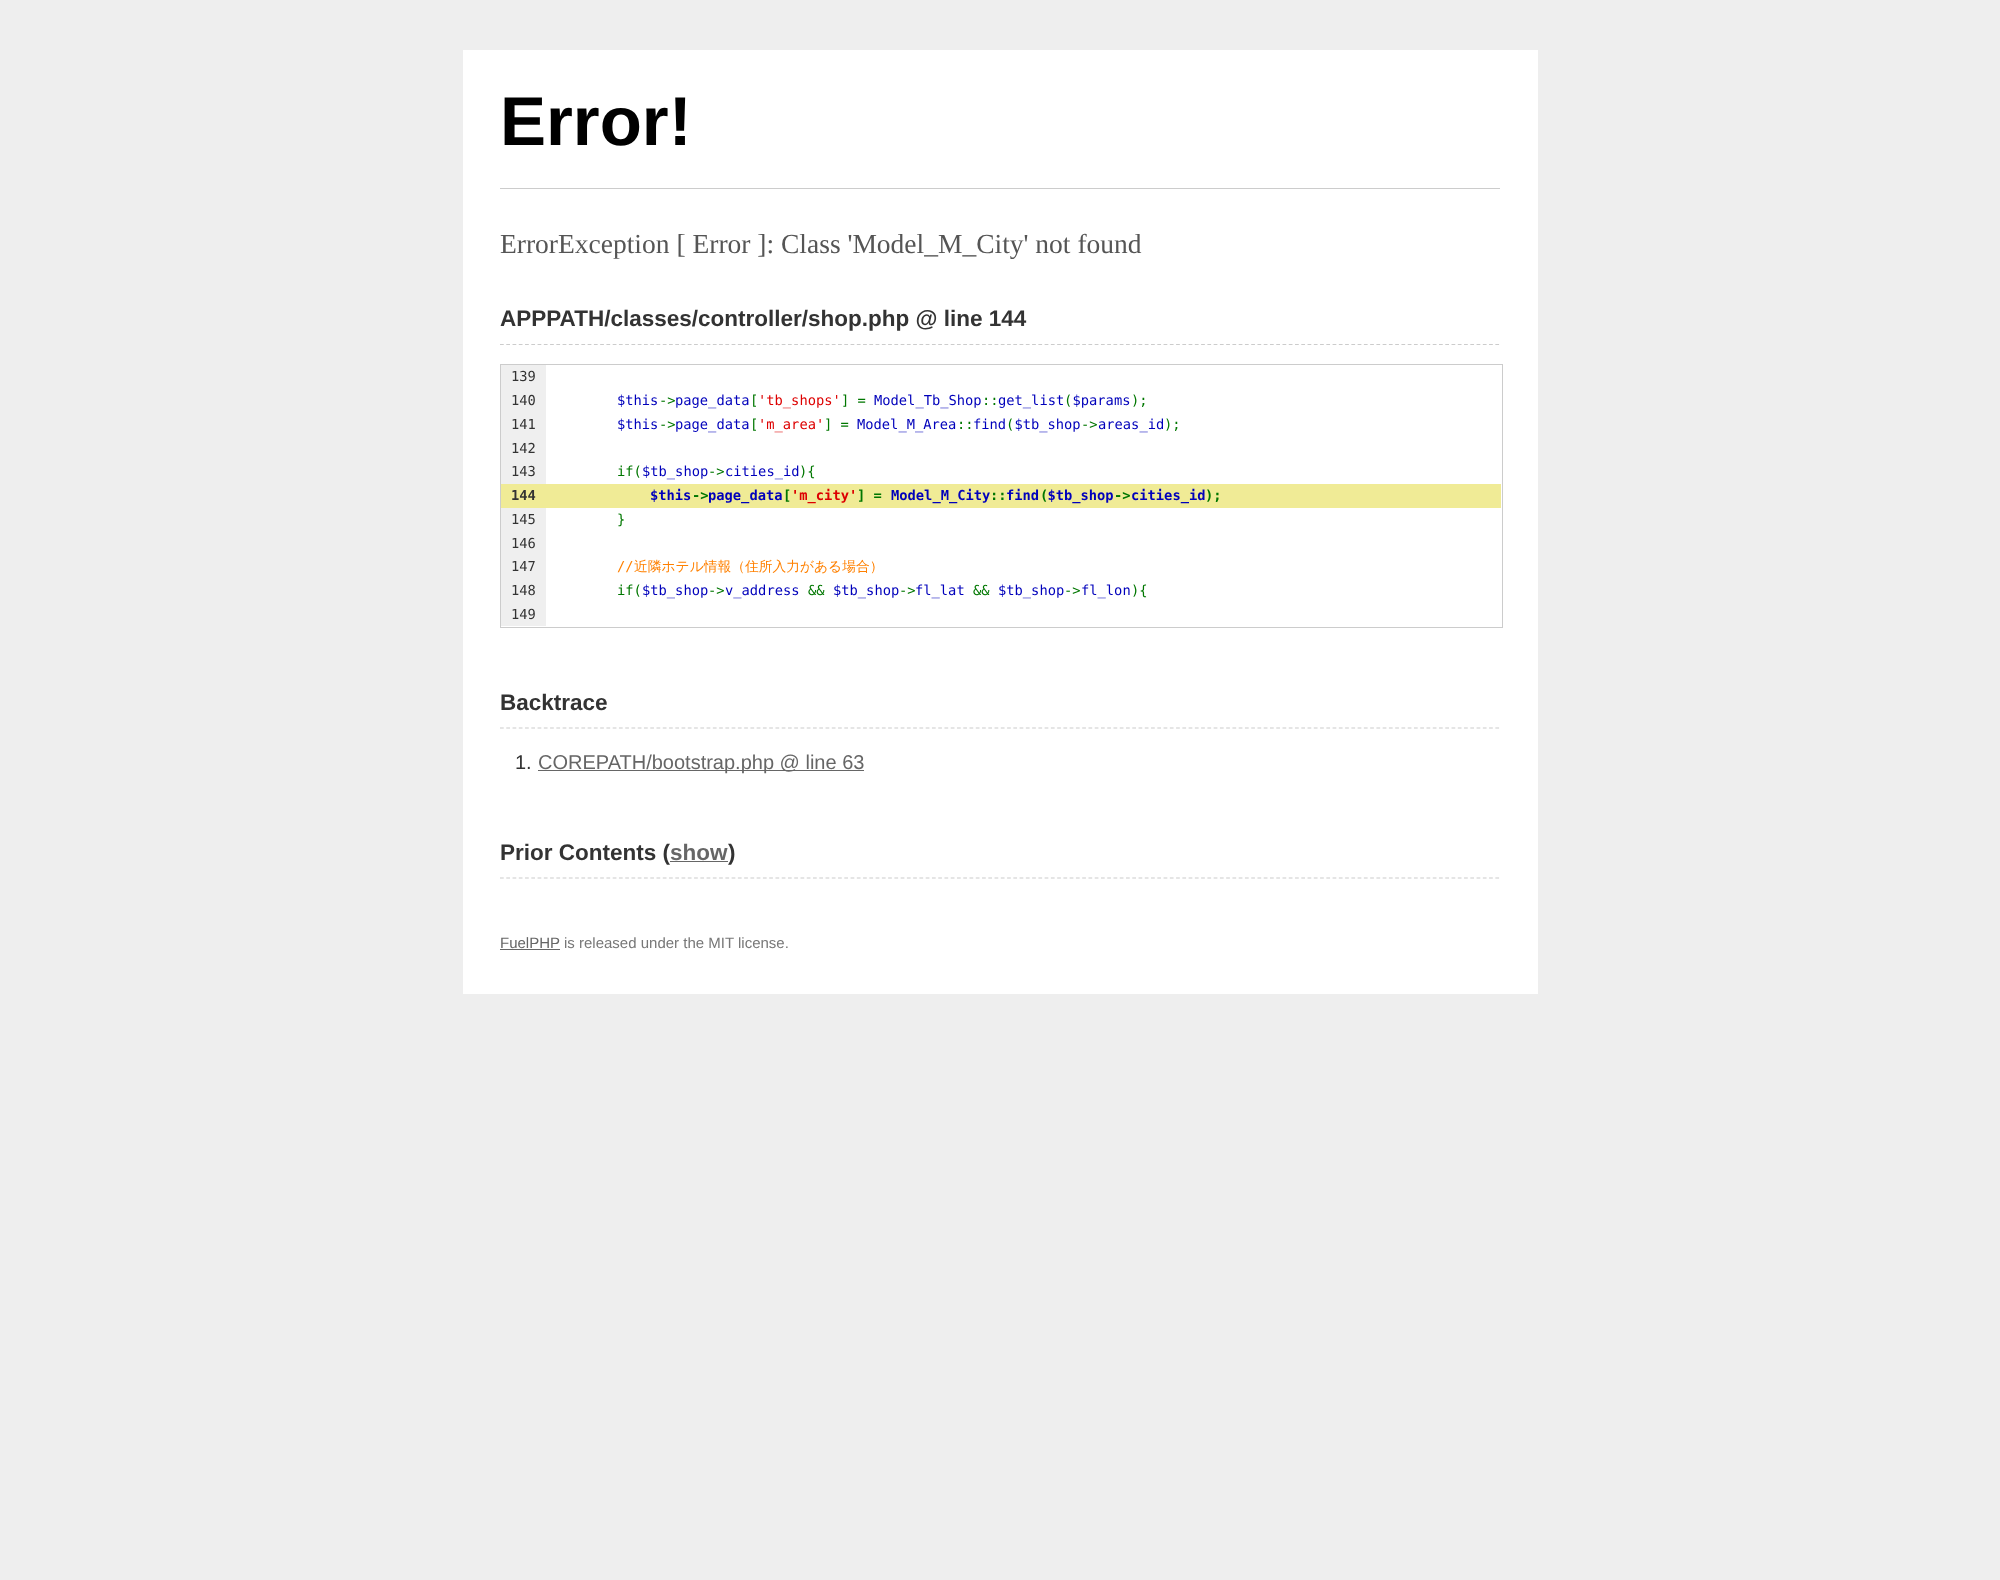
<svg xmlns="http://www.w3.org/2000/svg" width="2000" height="1580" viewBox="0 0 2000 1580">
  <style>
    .t1 { font: bold 69px Liberation Sans; fill: #000; }
    .t2 { font: 27.5px Liberation Serif; fill: #555; }
    .t3 { font: bold 22.5px Liberation Sans; fill: #333; }
    .t4 { font: 13.75px DejaVu Sans Mono; fill: #333; }
    .t5 { font: 13.75px DejaVu Sans Mono; fill: #00b; }
    .t6 { font: 13.75px DejaVu Sans Mono; fill: #070; }
    .t7 { font: 13.75px DejaVu Sans Mono; fill: #d00; }
    .t8 { font: bold 13.75px DejaVu Sans Mono; fill: #333; }
    .t9 { font: bold 13.75px DejaVu Sans Mono; fill: #00b; }
    .t10 { font: bold 13.75px DejaVu Sans Mono; fill: #070; }
    .t11 { font: bold 13.75px DejaVu Sans Mono; fill: #d00; }
    .t12 { font: 13.75px DejaVu Sans Mono; fill: #ff8000; }
    .t13 { font: 500 13.75px WenQuanYi Zen Hei; fill: #ff8000; }
    .t14 { font: 20px Liberation Sans; fill: #333; }
    .t15 { font: 20px Liberation Sans; fill: #666; }
    .t16 { font: bold 22.5px Liberation Sans; fill: #666; }
    .t17 { font: 15px Liberation Sans; fill: #666; }
    .t18 { font: 15px Liberation Sans; fill: #777; }
  </style>
  <rect width="100%" height="100%" fill="#eee"/>
  <rect x="463" y="50" width="1075" height="944" fill="#fff"/>
  <text x="500" y="145" class="t1">Error!</text>
  <rect x="500" y="188" width="1000" height="1" fill="#ccc"/>
  <text x="500" y="253" class="t2">ErrorException [ Error ]: Class 'Model_M_City' not found</text>
  <path d="M500 344.5H1500" fill="none" stroke="#ccc" stroke-width="1.2" stroke-dasharray="3.75 2.51"/>
  <text x="500" y="326" class="t3">APPPATH/classes/controller/shop.php @ line 144</text>
  <rect x="500.5" y="364.5" width="1002" height="263" fill="none" stroke="#ccc"/>
  <rect x="501" y="365" width="45" height="119" fill="#efefef"/>
  <text x="511" y="381" class="t4">139</text>
  <text x="511" y="405" class="t4">140</text>
  <text x="617" y="405" class="t5">$this</text>
  <text x="675" y="405" class="t5">page_data</text>
  <text x="750" y="405" class="t6">[</text>
  <text x="758" y="405" class="t7">'tb_shops'</text>
  <text x="841" y="405" class="t6">] =</text>
  <text x="874" y="405" class="t5">Model_Tb_Shop</text>
  <text x="998" y="405" class="t5">get_list $params</text>
  <text x="659" y="405" class="t6">-&gt;</text>
  <text x="982" y="405" class="t6">::</text>
  <text x="1064" y="405" class="t6">(</text>
  <text x="1131" y="405" class="t6">);</text>
  <text x="511" y="429" class="t4">141</text>
  <text x="617" y="429" class="t5">$this</text>
  <text x="675" y="429" class="t5">page_data</text>
  <text x="750" y="429" class="t6">[</text>
  <text x="824" y="429" class="t6">] =</text>
  <text x="857" y="429" class="t5">Model_M_Area</text>
  <text x="973" y="429" class="t5">find $tb_shop</text>
  <text x="659" y="429" class="t6">-&gt;</text>
  <text x="758" y="429" class="t7">'m_area'</text>
  <text x="957" y="429" class="t6">::</text>
  <text x="1006" y="429" class="t6">(</text>
  <text x="1081" y="429" class="t6">-&gt;</text>
  <text x="1098" y="429" class="t5">areas_id</text>
  <text x="1164" y="429" class="t6">);</text>
  <text x="511" y="453" class="t4">142</text>
  <text x="511" y="476" class="t4">143</text>
  <text x="617" y="476" class="t6">if(</text>
  <text x="642" y="476" class="t5">$tb_shop</text>
  <text x="708" y="476" class="t6">-&gt;</text>
  <text x="725" y="476" class="t5">cities_id</text>
  <text x="799" y="476" class="t6">){</text>
  <rect x="501" y="484" width="1000" height="24" fill="#f0eb96"/>
  <text x="511" y="500" class="t8">144</text>
  <text x="650" y="500" class="t9">$this</text>
  <text x="708" y="500" class="t9">page_data</text>
  <text x="783" y="500" class="t10">[</text>
  <text x="791" y="500" class="t11">'m_city'</text>
  <text x="857" y="500" class="t10">] =</text>
  <text x="891" y="500" class="t9">Model_M_City</text>
  <text x="1006" y="500" class="t9">find $tb_shop</text>
  <text x="1131" y="500" class="t9">cities_id</text>
  <text x="692" y="500" class="t10">-&gt;</text>
  <text x="990" y="500" class="t10">::</text>
  <text x="1040" y="500" class="t10">(</text>
  <text x="1114" y="500" class="t10">-&gt;</text>
  <text x="1205" y="500" class="t10">);</text>
  <rect x="501" y="508" width="45" height="118" fill="#efefef"/>
  <text x="511" y="524" class="t4">145</text>
  <text x="617" y="524" class="t6">}</text>
  <text x="511" y="548" class="t4">146</text>
  <text x="511" y="571" class="t4">147</text>
  <text x="617" y="571" class="t12">//</text>
  <text x="634" y="571" class="t13">近隣ホテル情報（住所入力がある場合）</text>
  <text x="511" y="595" class="t4">148</text>
  <text x="617" y="595" class="t6">if(</text>
  <text x="642" y="595" class="t5">$tb_shop</text>
  <text x="708" y="595" class="t6">-&gt;</text>
  <text x="725" y="595" class="t5">v_address</text>
  <text x="808" y="595" class="t6">&amp;&amp;</text>
  <text x="833" y="595" class="t5">$tb_shop</text>
  <text x="899" y="595" class="t6">-&gt;</text>
  <text x="915" y="595" class="t5">fl_lat</text>
  <text x="973" y="595" class="t6">&amp;&amp;</text>
  <text x="998" y="595" class="t5">$tb_shop</text>
  <text x="1064" y="595" class="t6">-&gt;</text>
  <text x="1081" y="595" class="t5">fl_lon</text>
  <text x="1131" y="595" class="t6">){</text>
  <text x="511" y="619" class="t4">149</text>
  <path d="M500 728H1500" fill="none" stroke="#ccc" stroke-width="1.2" stroke-dasharray="3.75 2.51"/>
  <text x="500" y="710" class="t3">Backtrace</text>
  <text x="515" y="769" class="t14">1.</text>
  <rect x="538" y="770" width="326" height="1" fill="#666"/>
  <text x="538" y="769" class="t15">COREPATH/bootstrap.php @ line 63</text>
  <path d="M500 878H1500" fill="none" stroke="#ccc" stroke-width="1.2" stroke-dasharray="3.75 2.51"/>
  <text x="500" y="860" class="t3">Prior Contents (</text>
  <text x="670" y="860" class="t16">show</text>
  <rect x="670" y="861" width="58" height="1" fill="#666"/>
  <text x="728" y="860" class="t3">)</text>
  <text x="500" y="948" class="t17">FuelPHP</text>
  <rect x="500" y="949" width="60" height="1" fill="#666"/>
  <text x="564" y="948" class="t18">is released under the MIT license.</text>
</svg>
